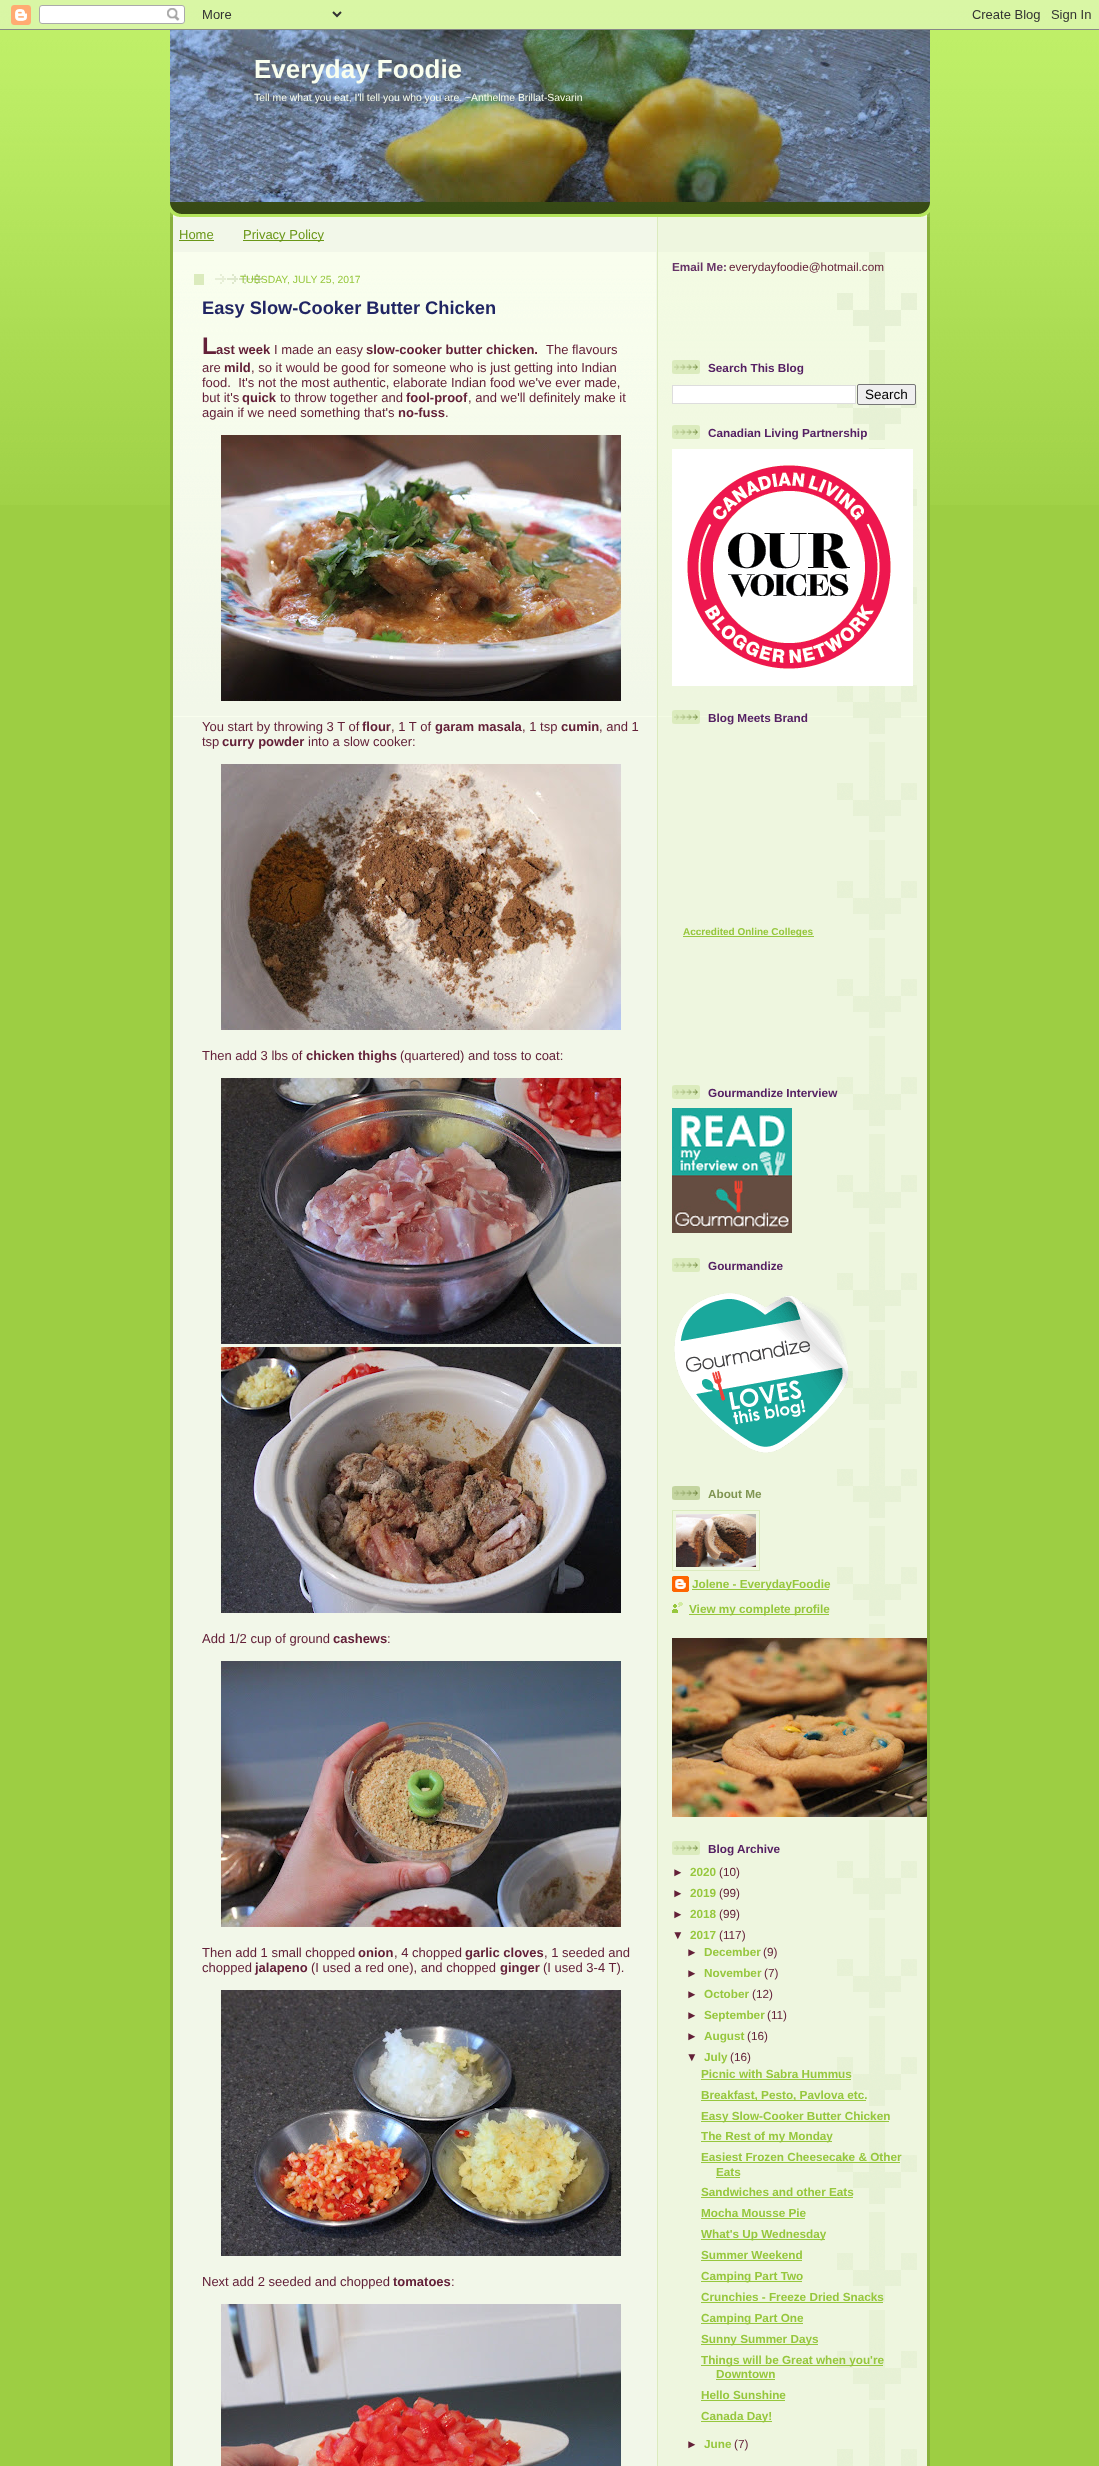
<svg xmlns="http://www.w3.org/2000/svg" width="1099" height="2466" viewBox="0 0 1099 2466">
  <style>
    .t1 { font: bold 26px Liberation Sans; fill: #f9feee; }
    .t2 { font: 10.4px Liberation Sans; fill: #f9feee; }
    .t3 { font: 13px Liberation Sans; fill: #6a9718; }
    .t4 { font: 10.4px Liberation Sans; fill: #96c73d; }
    .t5 { font: bold 18.25px Liberation Sans; fill: #202563; }
    .t6 { font: bold 24px Liberation Sans; fill: #632038; }
    .t7 { font: bold 13px Liberation Sans; fill: #632038; }
    .t8 { font: 13px Liberation Sans; fill: #632038; }
    .t9 { font: bold 11.75px Liberation Sans; fill: #636; }
    .t10 { font: 11.75px Liberation Sans; fill: #632038; }
    .t11 { font: bold 11.75px Liberation Sans; fill: #552063; }
    .t12 { font: 13.5px Liberation Sans; fill: #000; }
    .t13 { font: bold 10px Liberation Sans; fill: #96c73d; }
    .t14 { font: bold 11.75px Liberation Sans; fill: #809552; }
    .t15 { font: bold 11.75px Liberation Sans; fill: #96c73d; }
    .t16 { font: bold 11.75px Liberation Sans; fill: #632038; }
  </style>
  <rect width="100%" height="100%" fill="#9dce43"/>
  <image x="0" y="0" width="1099" height="505" href="images/1.png"/>
  <image x="0" y="0" width="1099" height="30" href="images/2.png"/>
  <image x="170" y="202" width="760" height="15" href="images/3.png"/>
  <image x="170" y="30" width="760" height="172" href="images/4.png"/>
  <text x="254" y="78" class="t1">Everyday Foodie</text>
  <text x="254" y="101" class="t2">Tell me what you eat, I'll tell you who you are. ~Anthelme Brillat-Savarin</text>
  <image x="170" y="217" width="760" height="2249" href="images/5.png"/>
  <text x="179" y="239" class="t3">Home</text>
  <rect x="179" y="240" width="35" height="1" fill="#6a9718"/>
  <rect x="243" y="240" width="81" height="1" fill="#6a9718"/>
  <text x="243" y="239" class="t3">Privacy Policy</text>
  <image x="173" y="252" width="483" height="465" href="images/6.png"/>
  <rect x="194" y="274" width="10" height="11" fill="#dbebbd"/>
  <image x="215" y="274" width="47" height="10" href="images/7.png"/>
  <text x="240" y="283" class="t4">TUESDAY, JULY 25, 2017</text>
  <text x="202" y="314" class="t5">Easy Slow-Cooker Butter Chicken</text>
  <text x="202" y="354" class="t6">L</text>
  <text x="216" y="354" class="t7">ast week</text>
  <text x="274" y="354" class="t8">I made an easy</text>
  <text x="366" y="354" class="t7">slow-cooker butter chicken.</text>
  <text x="546" y="354" class="t8">The flavours</text>
  <text x="202" y="372" class="t8">are</text>
  <text x="224" y="372" class="t7">mild</text>
  <text x="251" y="372" class="t8">, so it would be good for someone who is just getting into Indian</text>
  <text x="202" y="387" class="t8" xml:space="preserve">food.  It's not the most authentic, elaborate Indian food we've ever made,</text>
  <text x="202" y="402" class="t8">but it's</text>
  <text x="242" y="402" class="t7">quick</text>
  <text x="280" y="402" class="t8">to throw together and</text>
  <text x="406" y="402" class="t7">fool-proof</text>
  <text x="468" y="402" class="t8">, and we'll definitely make it</text>
  <text x="202" y="417" class="t8">again if we need something that's</text>
  <text x="398" y="417" class="t7">no-fuss</text>
  <text x="445" y="417" class="t8">.</text>
  <image x="221" y="435" width="400" height="266" href="images/8.png"/>
  <text x="202" y="731" class="t8">You start by throwing 3 T of</text>
  <text x="362" y="731" class="t7">flour</text>
  <text x="391" y="731" class="t8">, 1 T of</text>
  <text x="435" y="731" class="t7">garam masala</text>
  <text x="522" y="731" class="t8">, 1 tsp</text>
  <text x="561" y="731" class="t7">cumin</text>
  <text x="599" y="731" class="t8">, and 1</text>
  <text x="202" y="746" class="t8">tsp</text>
  <text x="222" y="746" class="t7">curry powder</text>
  <text x="308" y="746" class="t8">into a slow cooker:</text>
  <image x="221" y="764" width="400" height="266" href="images/9.png"/>
  <text x="202" y="1060" class="t8">Then add 3 lbs of</text>
  <text x="306" y="1060" class="t7">chicken thighs</text>
  <text x="400" y="1060" class="t8">(quartered) and toss to coat:</text>
  <image x="221" y="1078" width="400" height="266" href="images/10.png"/>
  <image x="221" y="1347" width="400" height="266" href="images/11.png"/>
  <text x="202" y="1643" class="t8">Add 1/2 cup of ground</text>
  <text x="333" y="1643" class="t7">cashews</text>
  <text x="387" y="1643" class="t8">:</text>
  <image x="221" y="1661" width="400" height="266" href="images/12.png"/>
  <text x="202" y="1957" class="t8">Then add 1 small chopped</text>
  <text x="358" y="1957" class="t7">onion</text>
  <text x="394" y="1957" class="t8">, 4 chopped</text>
  <text x="465" y="1957" class="t7">garlic cloves</text>
  <text x="544" y="1957" class="t8">, 1 seeded and</text>
  <text x="202" y="1972" class="t8">chopped</text>
  <text x="255" y="1972" class="t7">jalapeno</text>
  <text x="311" y="1972" class="t8">(I used a red one), and chopped</text>
  <text x="500" y="1972" class="t7">ginger</text>
  <text x="543" y="1972" class="t8">(I used 3-4 T).</text>
  <image x="221" y="1990" width="400" height="266" href="images/13.png"/>
  <text x="202" y="2286" class="t8">Next add 2 seeded and chopped</text>
  <text x="393" y="2286" class="t7">tomatoes</text>
  <text x="451" y="2286" class="t8">:</text>
  <image x="221" y="2304" width="400" height="162" href="images/14.png"/>
  <image x="658" y="252" width="269" height="465" href="images/15.png"/>
  <image x="837" y="252" width="80" height="2214" href="images/16.png"/>
  <text x="672" y="271" class="t9">Email Me:</text>
  <text x="729" y="271" class="t10">everydayfoodie@hotmail.com</text>
  <image x="672" y="360" width="28" height="14" href="images/17.png"/>
  <text x="708" y="372" class="t11">Search This Blog</text>
  <rect x="672.5" y="385.5" width="183" height="18" fill="#fff" stroke="#ddd"/>
  <rect x="857.5" y="384.5" width="58" height="20" rx="1.5" fill="#efefef" stroke="#767676"/>
  <text x="865" y="399" class="t12">Search</text>
  <image x="672" y="425" width="28" height="14" href="images/18.png"/>
  <text x="708" y="437" class="t11">Canadian Living Partnership</text>
  <image x="672" y="449" width="241" height="237" href="images/19.png"/>
  <image x="672" y="710" width="28" height="14" href="images/20.png"/>
  <text x="708" y="722" class="t11">Blog Meets Brand</text>
  <rect x="683" y="936" width="131" height="1" fill="#96c73d"/>
  <text x="683" y="935" class="t13">Accredited Online Colleges</text>
  <image x="672" y="1085" width="28" height="14" href="images/20.png"/>
  <text x="708" y="1097" class="t11">Gourmandize Interview</text>
  <image x="672" y="1108" width="120" height="125" href="images/21.png"/>
  <image x="672" y="1258" width="28" height="14" href="images/20.png"/>
  <text x="708" y="1270" class="t11">Gourmandize</text>
  <image x="674" y="1293" width="175" height="160" href="images/22.png"/>
  <image x="672" y="1486" width="28" height="14" href="images/23.png"/>
  <text x="708" y="1498" class="t14">About Me</text>
  <rect x="672.5" y="1510.5" width="87" height="60" fill="none" stroke="#dbebbd"/>
  <image x="676" y="1514" width="80" height="53" href="images/24.png"/>
  <image x="672" y="1576" width="17" height="16" href="images/25.png"/>
  <rect x="692" y="1589" width="137" height="1" fill="#96c73d"/>
  <text x="692" y="1588" class="t15">Jolene - EverydayFoodie</text>
  <image x="672" y="1602" width="11" height="11" href="images/26.png"/>
  <rect x="689" y="1614" width="140" height="1" fill="#96c73d"/>
  <text x="689" y="1613" class="t15">View my complete profile</text>
  <image x="672" y="1638" width="255" height="179" href="images/27.png"/>
  <image x="672" y="1841" width="28" height="14" href="images/20.png"/>
  <text x="708" y="1853" class="t11">Blog Archive</text>
  <text x="672" y="1876" class="t16">►</text>
  <text x="690" y="1876" class="t15">2020</text>
  <text x="719" y="1876" class="t10">(10)</text>
  <text x="672" y="1897" class="t16">►</text>
  <text x="690" y="1897" class="t15">2019</text>
  <text x="719" y="1897" class="t10">(99)</text>
  <text x="672" y="1918" class="t16">►</text>
  <text x="690" y="1918" class="t15">2018</text>
  <text x="719" y="1918" class="t10">(99)</text>
  <text x="672" y="1939" class="t16">▼</text>
  <text x="690" y="1939" class="t15">2017</text>
  <text x="719" y="1939" class="t10">(117)</text>
  <text x="686" y="1956" class="t16">►</text>
  <text x="704" y="1956" class="t15">December</text>
  <text x="763" y="1956" class="t10">(9)</text>
  <text x="686" y="1977" class="t16">►</text>
  <text x="704" y="1977" class="t15">November</text>
  <text x="764" y="1977" class="t10">(7)</text>
  <text x="686" y="1998" class="t16">►</text>
  <text x="704" y="1998" class="t15">October</text>
  <text x="752" y="1998" class="t10">(12)</text>
  <text x="686" y="2019" class="t16">►</text>
  <text x="704" y="2019" class="t15">September</text>
  <text x="767" y="2019" class="t10">(11)</text>
  <text x="686" y="2040" class="t16">►</text>
  <text x="704" y="2040" class="t15">August</text>
  <text x="747" y="2040" class="t10">(16)</text>
  <text x="686" y="2061" class="t16">▼</text>
  <text x="704" y="2061" class="t15">July</text>
  <text x="730" y="2061" class="t10">(16)</text>
  <text x="701" y="2078" class="t15">Picnic with Sabra Hummus</text>
  <rect x="701" y="2079" width="150" height="1" fill="#96c73d"/>
  <rect x="701" y="2100" width="165" height="1" fill="#96c73d"/>
  <text x="701" y="2099" class="t15">Breakfast, Pesto, Pavlova etc.</text>
  <rect x="701" y="2121" width="188" height="1" fill="#96c73d"/>
  <text x="701" y="2120" class="t15">Easy Slow-Cooker Butter Chicken</text>
  <rect x="701" y="2141" width="131" height="1" fill="#96c73d"/>
  <text x="701" y="2140" class="t15">The Rest of my Monday</text>
  <text x="701" y="2161" class="t15">Easiest Frozen Cheesecake &amp; Other</text>
  <rect x="701" y="2162" width="199" height="1" fill="#96c73d"/>
  <text x="716" y="2176" class="t15">Eats</text>
  <rect x="716" y="2177" width="24" height="1" fill="#96c73d"/>
  <text x="701" y="2196" class="t15">Sandwiches and other Eats</text>
  <rect x="701" y="2197" width="152" height="1" fill="#96c73d"/>
  <text x="701" y="2217" class="t15">Mocha Mousse Pie</text>
  <rect x="701" y="2218" width="104" height="1" fill="#96c73d"/>
  <rect x="701" y="2239" width="124" height="1" fill="#96c73d"/>
  <text x="701" y="2238" class="t15">What's Up Wednesday</text>
  <text x="701" y="2259" class="t15">Summer Weekend</text>
  <rect x="701" y="2260" width="101" height="1" fill="#96c73d"/>
  <rect x="701" y="2281" width="101" height="1" fill="#96c73d"/>
  <text x="701" y="2280" class="t15">Camping Part Two</text>
  <text x="701" y="2301" class="t15">Crunchies - Freeze Dried Snacks</text>
  <rect x="701" y="2302" width="182" height="1" fill="#96c73d"/>
  <rect x="701" y="2323" width="102" height="1" fill="#96c73d"/>
  <text x="701" y="2322" class="t15">Camping Part One</text>
  <rect x="701" y="2344" width="117" height="1" fill="#96c73d"/>
  <text x="701" y="2343" class="t15">Sunny Summer Days</text>
  <rect x="701" y="2365" width="182" height="1" fill="#96c73d"/>
  <text x="701" y="2364" class="t15">Things will be Great when you're</text>
  <text x="716" y="2378" class="t15">Downtown</text>
  <rect x="716" y="2379" width="59" height="1" fill="#96c73d"/>
  <text x="701" y="2399" class="t15">Hello Sunshine</text>
  <rect x="701" y="2400" width="84" height="1" fill="#96c73d"/>
  <rect x="701" y="2421" width="71" height="1" fill="#96c73d"/>
  <text x="701" y="2420" class="t15">Canada Day!</text>
  <text x="686" y="2448" class="t16">►</text>
  <text x="704" y="2448" class="t15">June</text>
  <text x="734" y="2448" class="t10">(7)</text>
</svg>
